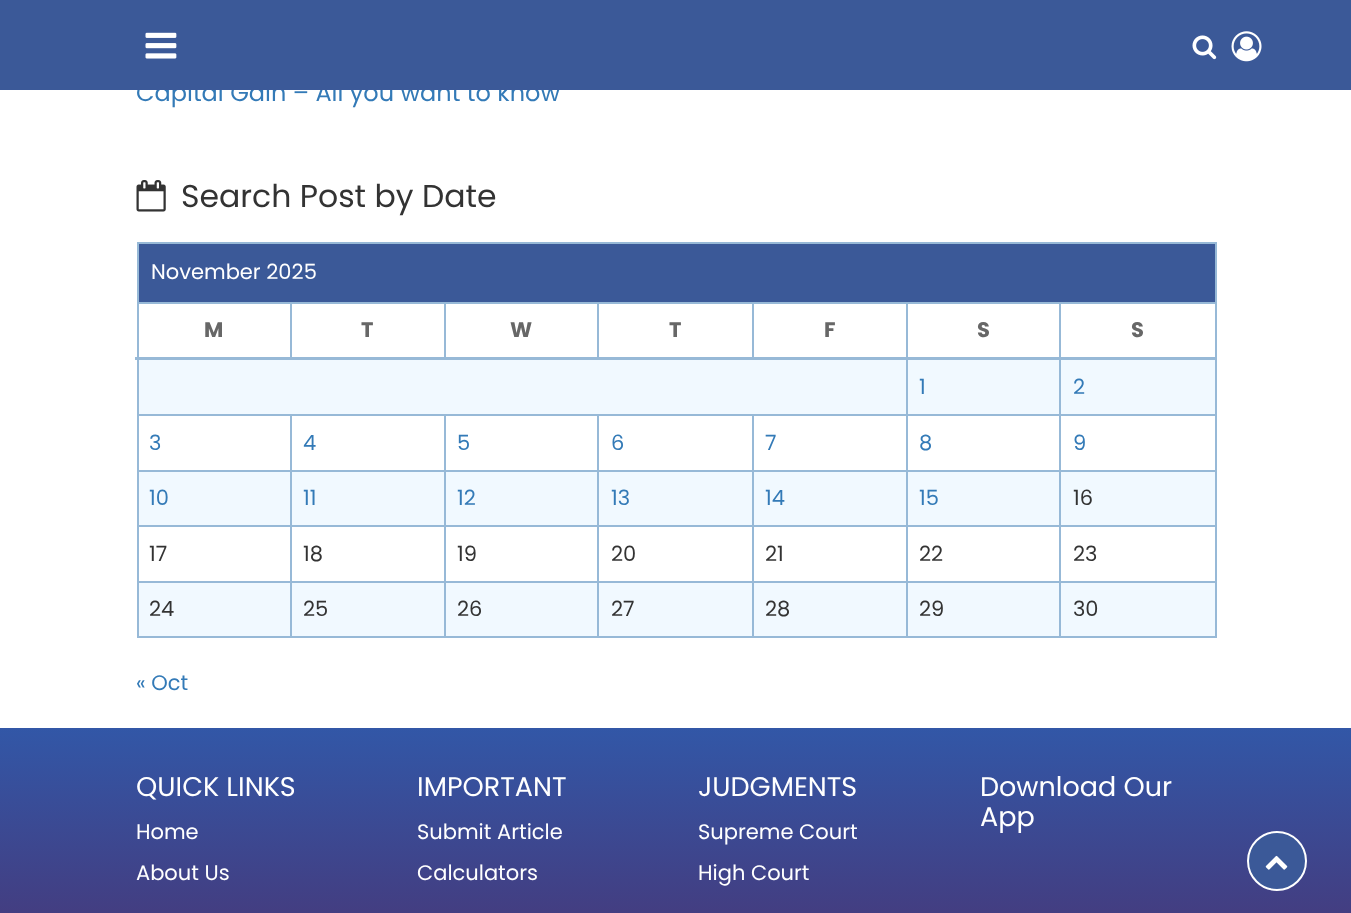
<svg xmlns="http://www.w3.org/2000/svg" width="1351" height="913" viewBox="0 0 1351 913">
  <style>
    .t1 { font: 24px Poppins; fill: #337ab7; }
    .t2 { font: 31.5px Poppins; fill: #333; }
    .t3 { font: 21px Poppins; fill: #fff; }
    .t4 { font: bold 21px Poppins; fill: #676767; }
    .t5 { font: 21px Poppins; fill: #337ab7; }
    .t6 { font: 21px Poppins; fill: #333; }
    .t7 { font: 27px Poppins; fill: #fff; }
  </style>
  <defs>
    <linearGradient id="g1" gradientUnits="userSpaceOnUse" x1="676" y1="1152" x2="676" y2="728"><stop offset="0" stop-color="#591d51"/><stop offset="1" stop-color="#3257a7"/></linearGradient>
  </defs>
  <rect width="100%" height="100%" fill="#fff"/>
  <text x="136" y="101" class="t1">Capital Gain – All you want to know</text>
  <rect x="0" y="0" width="1351" height="90" fill="#3b5998"/>
  <image x="145" y="32" width="32" height="27" href="images/1.png"/>
  <image x="1192" y="35" width="25" height="25" href="images/2.png"/>
  <image x="1231" y="31" width="31" height="31" href="images/3.png"/>
  <image x="136" y="180" width="30" height="32" href="images/4.png"/>
  <text x="181" y="207" class="t2">Search Post by Date</text>
  <rect x="137" y="242" width="1080" height="2" fill="#97b9d7"/>
  <rect x="1215" y="242" width="2" height="396" fill="#97b9d7"/>
  <rect x="137" y="636" width="1080" height="2" fill="#97b9d7"/>
  <rect x="137" y="242" width="2" height="396" fill="#97b9d7"/>
  <rect x="139" y="244" width="1076" height="58" fill="#3b5998"/>
  <text x="151" y="279" class="t3">November 2025</text>
  <rect x="1059" y="302" width="158" height="2" fill="#97b9d7"/>
  <rect x="139" y="360" width="1076" height="54" fill="#f1f9ff"/>
  <rect x="1059" y="414" width="158" height="2" fill="#97b9d7"/>
  <rect x="1059" y="470" width="158" height="2" fill="#97b9d7"/>
  <rect x="139" y="472" width="1076" height="53" fill="#f1f9ff"/>
  <rect x="1059" y="525" width="158" height="2" fill="#97b9d7"/>
  <rect x="1059" y="581" width="158" height="2" fill="#97b9d7"/>
  <rect x="139" y="583" width="1076" height="53" fill="#f1f9ff"/>
  <rect x="1059" y="581" width="2" height="57" fill="#97b9d7"/>
  <rect x="906" y="581" width="155" height="2" fill="#97b9d7"/>
  <rect x="1059" y="525" width="2" height="57" fill="#97b9d7"/>
  <rect x="906" y="525" width="155" height="2" fill="#97b9d7"/>
  <rect x="1059" y="470" width="2" height="57" fill="#97b9d7"/>
  <rect x="906" y="470" width="155" height="2" fill="#97b9d7"/>
  <rect x="1059" y="414" width="2" height="57" fill="#97b9d7"/>
  <rect x="906" y="414" width="155" height="2" fill="#97b9d7"/>
  <rect x="1059" y="357" width="2" height="59" fill="#97b9d7"/>
  <rect x="1059" y="302" width="2" height="57" fill="#97b9d7"/>
  <rect x="906" y="302" width="155" height="2" fill="#97b9d7"/>
  <rect x="906" y="581" width="2" height="57" fill="#97b9d7"/>
  <rect x="752" y="581" width="156" height="2" fill="#97b9d7"/>
  <rect x="906" y="525" width="2" height="57" fill="#97b9d7"/>
  <rect x="752" y="525" width="156" height="2" fill="#97b9d7"/>
  <rect x="906" y="470" width="2" height="57" fill="#97b9d7"/>
  <rect x="752" y="470" width="156" height="2" fill="#97b9d7"/>
  <rect x="906" y="414" width="2" height="57" fill="#97b9d7"/>
  <rect x="752" y="414" width="156" height="2" fill="#97b9d7"/>
  <rect x="906" y="357" width="2" height="59" fill="#97b9d7"/>
  <rect x="906" y="302" width="2" height="57" fill="#97b9d7"/>
  <rect x="752" y="302" width="156" height="2" fill="#97b9d7"/>
  <rect x="752" y="302" width="2" height="57" fill="#97b9d7"/>
  <rect x="597" y="302" width="156" height="2" fill="#97b9d7"/>
  <rect x="597" y="302" width="2" height="57" fill="#97b9d7"/>
  <rect x="444" y="302" width="155" height="2" fill="#97b9d7"/>
  <rect x="444" y="302" width="2" height="57" fill="#97b9d7"/>
  <rect x="290" y="302" width="156" height="2" fill="#97b9d7"/>
  <rect x="290" y="302" width="2" height="57" fill="#97b9d7"/>
  <rect x="137" y="302" width="154" height="2" fill="#97b9d7"/>
  <text x="204" y="337" class="t4">M</text>
  <text x="361" y="337" class="t4">T</text>
  <text x="510" y="337" class="t4">W</text>
  <text x="669" y="337" class="t4">T</text>
  <text x="824" y="337" class="t4">F</text>
  <text x="977" y="337" class="t4">S</text>
  <rect x="135" y="357" width="1082" height="3" fill="#97b9d7"/>
  <text x="1131" y="337" class="t4">S</text>
  <text x="919" y="394" class="t5">1</text>
  <text x="1073" y="394" class="t5">2</text>
  <rect x="752" y="581" width="2" height="57" fill="#97b9d7"/>
  <rect x="597" y="581" width="156" height="2" fill="#97b9d7"/>
  <rect x="752" y="525" width="2" height="57" fill="#97b9d7"/>
  <rect x="597" y="525" width="156" height="2" fill="#97b9d7"/>
  <rect x="752" y="470" width="2" height="57" fill="#97b9d7"/>
  <rect x="597" y="470" width="156" height="2" fill="#97b9d7"/>
  <rect x="752" y="414" width="2" height="57" fill="#97b9d7"/>
  <rect x="597" y="414" width="156" height="2" fill="#97b9d7"/>
  <rect x="597" y="581" width="2" height="57" fill="#97b9d7"/>
  <rect x="444" y="581" width="155" height="2" fill="#97b9d7"/>
  <rect x="597" y="525" width="2" height="57" fill="#97b9d7"/>
  <rect x="444" y="525" width="155" height="2" fill="#97b9d7"/>
  <rect x="597" y="470" width="2" height="57" fill="#97b9d7"/>
  <rect x="444" y="470" width="155" height="2" fill="#97b9d7"/>
  <rect x="597" y="414" width="2" height="57" fill="#97b9d7"/>
  <rect x="444" y="414" width="155" height="2" fill="#97b9d7"/>
  <rect x="444" y="581" width="2" height="57" fill="#97b9d7"/>
  <rect x="290" y="581" width="156" height="2" fill="#97b9d7"/>
  <rect x="444" y="525" width="2" height="57" fill="#97b9d7"/>
  <rect x="290" y="525" width="156" height="2" fill="#97b9d7"/>
  <rect x="444" y="470" width="2" height="57" fill="#97b9d7"/>
  <rect x="290" y="470" width="156" height="2" fill="#97b9d7"/>
  <rect x="444" y="414" width="2" height="57" fill="#97b9d7"/>
  <rect x="290" y="414" width="156" height="2" fill="#97b9d7"/>
  <rect x="290" y="581" width="2" height="57" fill="#97b9d7"/>
  <rect x="137" y="581" width="154" height="2" fill="#97b9d7"/>
  <rect x="290" y="525" width="2" height="57" fill="#97b9d7"/>
  <rect x="137" y="525" width="154" height="2" fill="#97b9d7"/>
  <rect x="290" y="470" width="2" height="57" fill="#97b9d7"/>
  <rect x="137" y="470" width="154" height="2" fill="#97b9d7"/>
  <rect x="290" y="414" width="2" height="57" fill="#97b9d7"/>
  <rect x="137" y="414" width="154" height="2" fill="#97b9d7"/>
  <text x="149" y="450" class="t5">3</text>
  <text x="303" y="450" class="t5">4</text>
  <text x="457" y="450" class="t5">5</text>
  <text x="611" y="450" class="t5">6</text>
  <text x="765" y="450" class="t5">7</text>
  <text x="919" y="450" class="t5">8</text>
  <text x="1073" y="450" class="t5">9</text>
  <text x="149" y="505" class="t5">10</text>
  <text x="303" y="505" class="t5">11</text>
  <text x="457" y="505" class="t5">12</text>
  <text x="611" y="505" class="t5">13</text>
  <text x="765" y="505" class="t5">14</text>
  <text x="919" y="505" class="t5">15</text>
  <text x="1073" y="505" class="t6">16</text>
  <text x="149" y="561" class="t6">17</text>
  <text x="303" y="561" class="t6">18</text>
  <text x="457" y="561" class="t6">19</text>
  <text x="611" y="561" class="t6">20</text>
  <text x="765" y="561" class="t6">21</text>
  <text x="919" y="561" class="t6">22</text>
  <text x="1073" y="561" class="t6">23</text>
  <text x="149" y="616" class="t6">24</text>
  <text x="303" y="616" class="t6">25</text>
  <text x="457" y="616" class="t6">26</text>
  <text x="611" y="616" class="t6">27</text>
  <text x="765" y="616" class="t6">28</text>
  <text x="919" y="616" class="t6">29</text>
  <text x="1073" y="616" class="t6">30</text>
  <text x="136" y="690" class="t5">« Oct</text>
  <rect x="0" y="728" width="1351" height="185" fill="url(#g1)"/>
  <text x="136" y="796" class="t7">QUICK LINKS</text>
  <text x="136" y="839" class="t3">Home</text>
  <text x="136" y="880" class="t3">About Us</text>
  <text x="417" y="796" class="t7">IMPORTANT</text>
  <text x="417" y="839" class="t3">Submit Article</text>
  <text x="417" y="880" class="t3">Calculators</text>
  <text x="698" y="796" class="t7">JUDGMENTS</text>
  <text x="698" y="839" class="t3">Supreme Court</text>
  <text x="698" y="880" class="t3">High Court</text>
  <text x="980" y="796" class="t7">Download Our</text>
  <text x="980" y="826" class="t7">App</text>
  <circle cx="1277" cy="861" r="29" fill="#3b5998" stroke="#fff" stroke-width="2"/>
  <image x="1265" y="855" width="23" height="15" href="images/5.png"/>
</svg>
